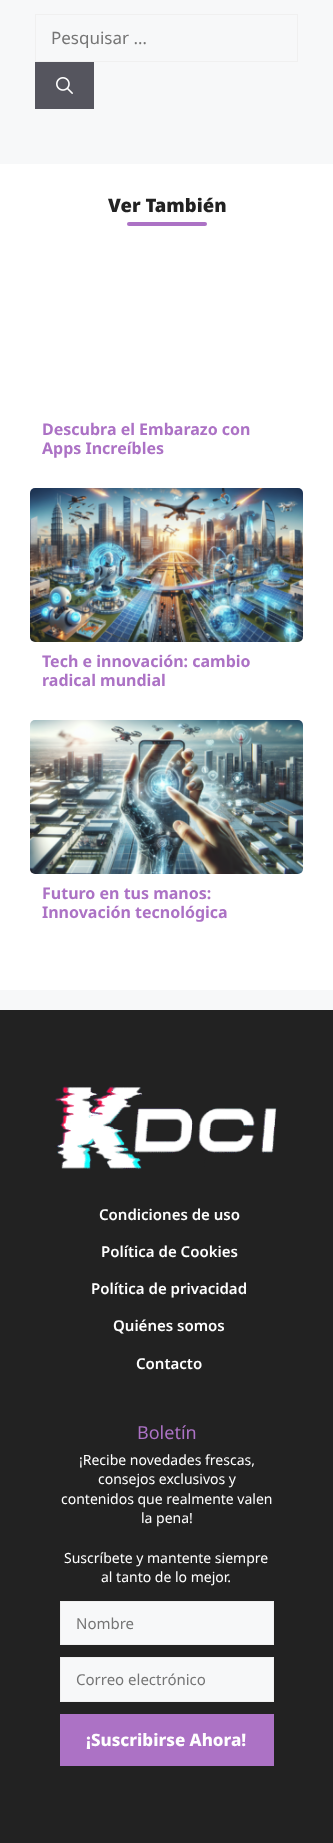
<svg xmlns="http://www.w3.org/2000/svg" width="333" height="1843" viewBox="0 0 333 1843">
  <style>
    .t1 { font: 17px Noto Sans; fill: #757575; }
    .t2 { font: 900 18.5px Noto Sans; fill: #222; }
    .t3 { font: bold 16px Noto Sans; fill: #ac72c5; }
    .t4 { font: 600 15px Noto Sans; fill: #fff; }
    .t5 { font: 18px Noto Sans; fill: #ac72c5; }
    .t6 { font: 14px Noto Sans; fill: #fff; }
    .t7 { font: 15px Noto Sans; fill: #757575; }
    .t8 { font: 800 17px Noto Sans; fill: #fff; }
  </style>
  <rect width="100%" height="100%" fill="#f7f8f9"/>
  <rect x="35.5" y="14.5" width="262" height="47" fill="none" stroke="#f0f0f0"/>
  <text x="51" y="44" class="t1">Pesquisar …</text>
  <rect x="35" y="62" width="59" height="47" fill="#55555e"/>
  <image x="56" y="77" width="17" height="17" href="images/1.png"/>
  <rect x="0" y="164" width="333" height="826" fill="#fff"/>
  <text x="108" y="212" class="t2">Ver También</text>
  <rect x="127" y="222" width="80" height="4" rx="2" fill="#ac72c5"/>
  <text x="42" y="435" class="t3">Descubra el Embarazo con</text>
  <text x="42" y="454" class="t3">Apps Increíbles</text>
  <image x="30" y="488" width="273" height="154" href="images/2.png"/>
  <text x="42" y="667" class="t3">Tech e innovación: cambio</text>
  <text x="42" y="686" class="t3">radical mundial</text>
  <image x="30" y="720" width="273" height="154" href="images/3.png"/>
  <text x="42" y="899" class="t3">Futuro en tus manos:</text>
  <text x="42" y="918" class="t3">Innovación tecnológica</text>
  <rect x="0" y="1010" width="333" height="833" fill="#222"/>
  <image x="54" y="1086" width="223" height="84" href="images/4.png"/>
  <text x="99" y="1220" class="t4">Condiciones de uso</text>
  <text x="101" y="1257" class="t4">Política de Cookies</text>
  <text x="91" y="1294" class="t4">Política de privacidad</text>
  <text x="113" y="1331" class="t4">Quiénes somos</text>
  <text x="136" y="1369" class="t4">Contacto</text>
  <text x="137" y="1439" class="t5">Boletín</text>
  <text x="79" y="1465" class="t6">¡Recibe novedades frescas,</text>
  <text x="98" y="1484" class="t6">consejos exclusivos y</text>
  <text x="61" y="1504" class="t6">contenidos que realmente valen</text>
  <text x="141" y="1523" class="t6">la pena!</text>
  <text x="64" y="1563" class="t6">Suscríbete y mantente siempre</text>
  <text x="101" y="1582" class="t6">al tanto de lo mejor.</text>
  <rect x="60.5" y="1601.5" width="213" height="43" fill="#f7f8f9" stroke="#f0f0f0"/>
  <text x="76" y="1629" class="t7">Nombre</text>
  <rect x="60.5" y="1657.5" width="213" height="44" fill="#f7f8f9" stroke="#f0f0f0"/>
  <text x="76" y="1685" class="t7">Correo electrónico</text>
  <rect x="60" y="1714" width="214" height="52" fill="#ac72c5"/>
  <text x="86" y="1746" class="t8">¡Suscribirse Ahora!</text>
</svg>
